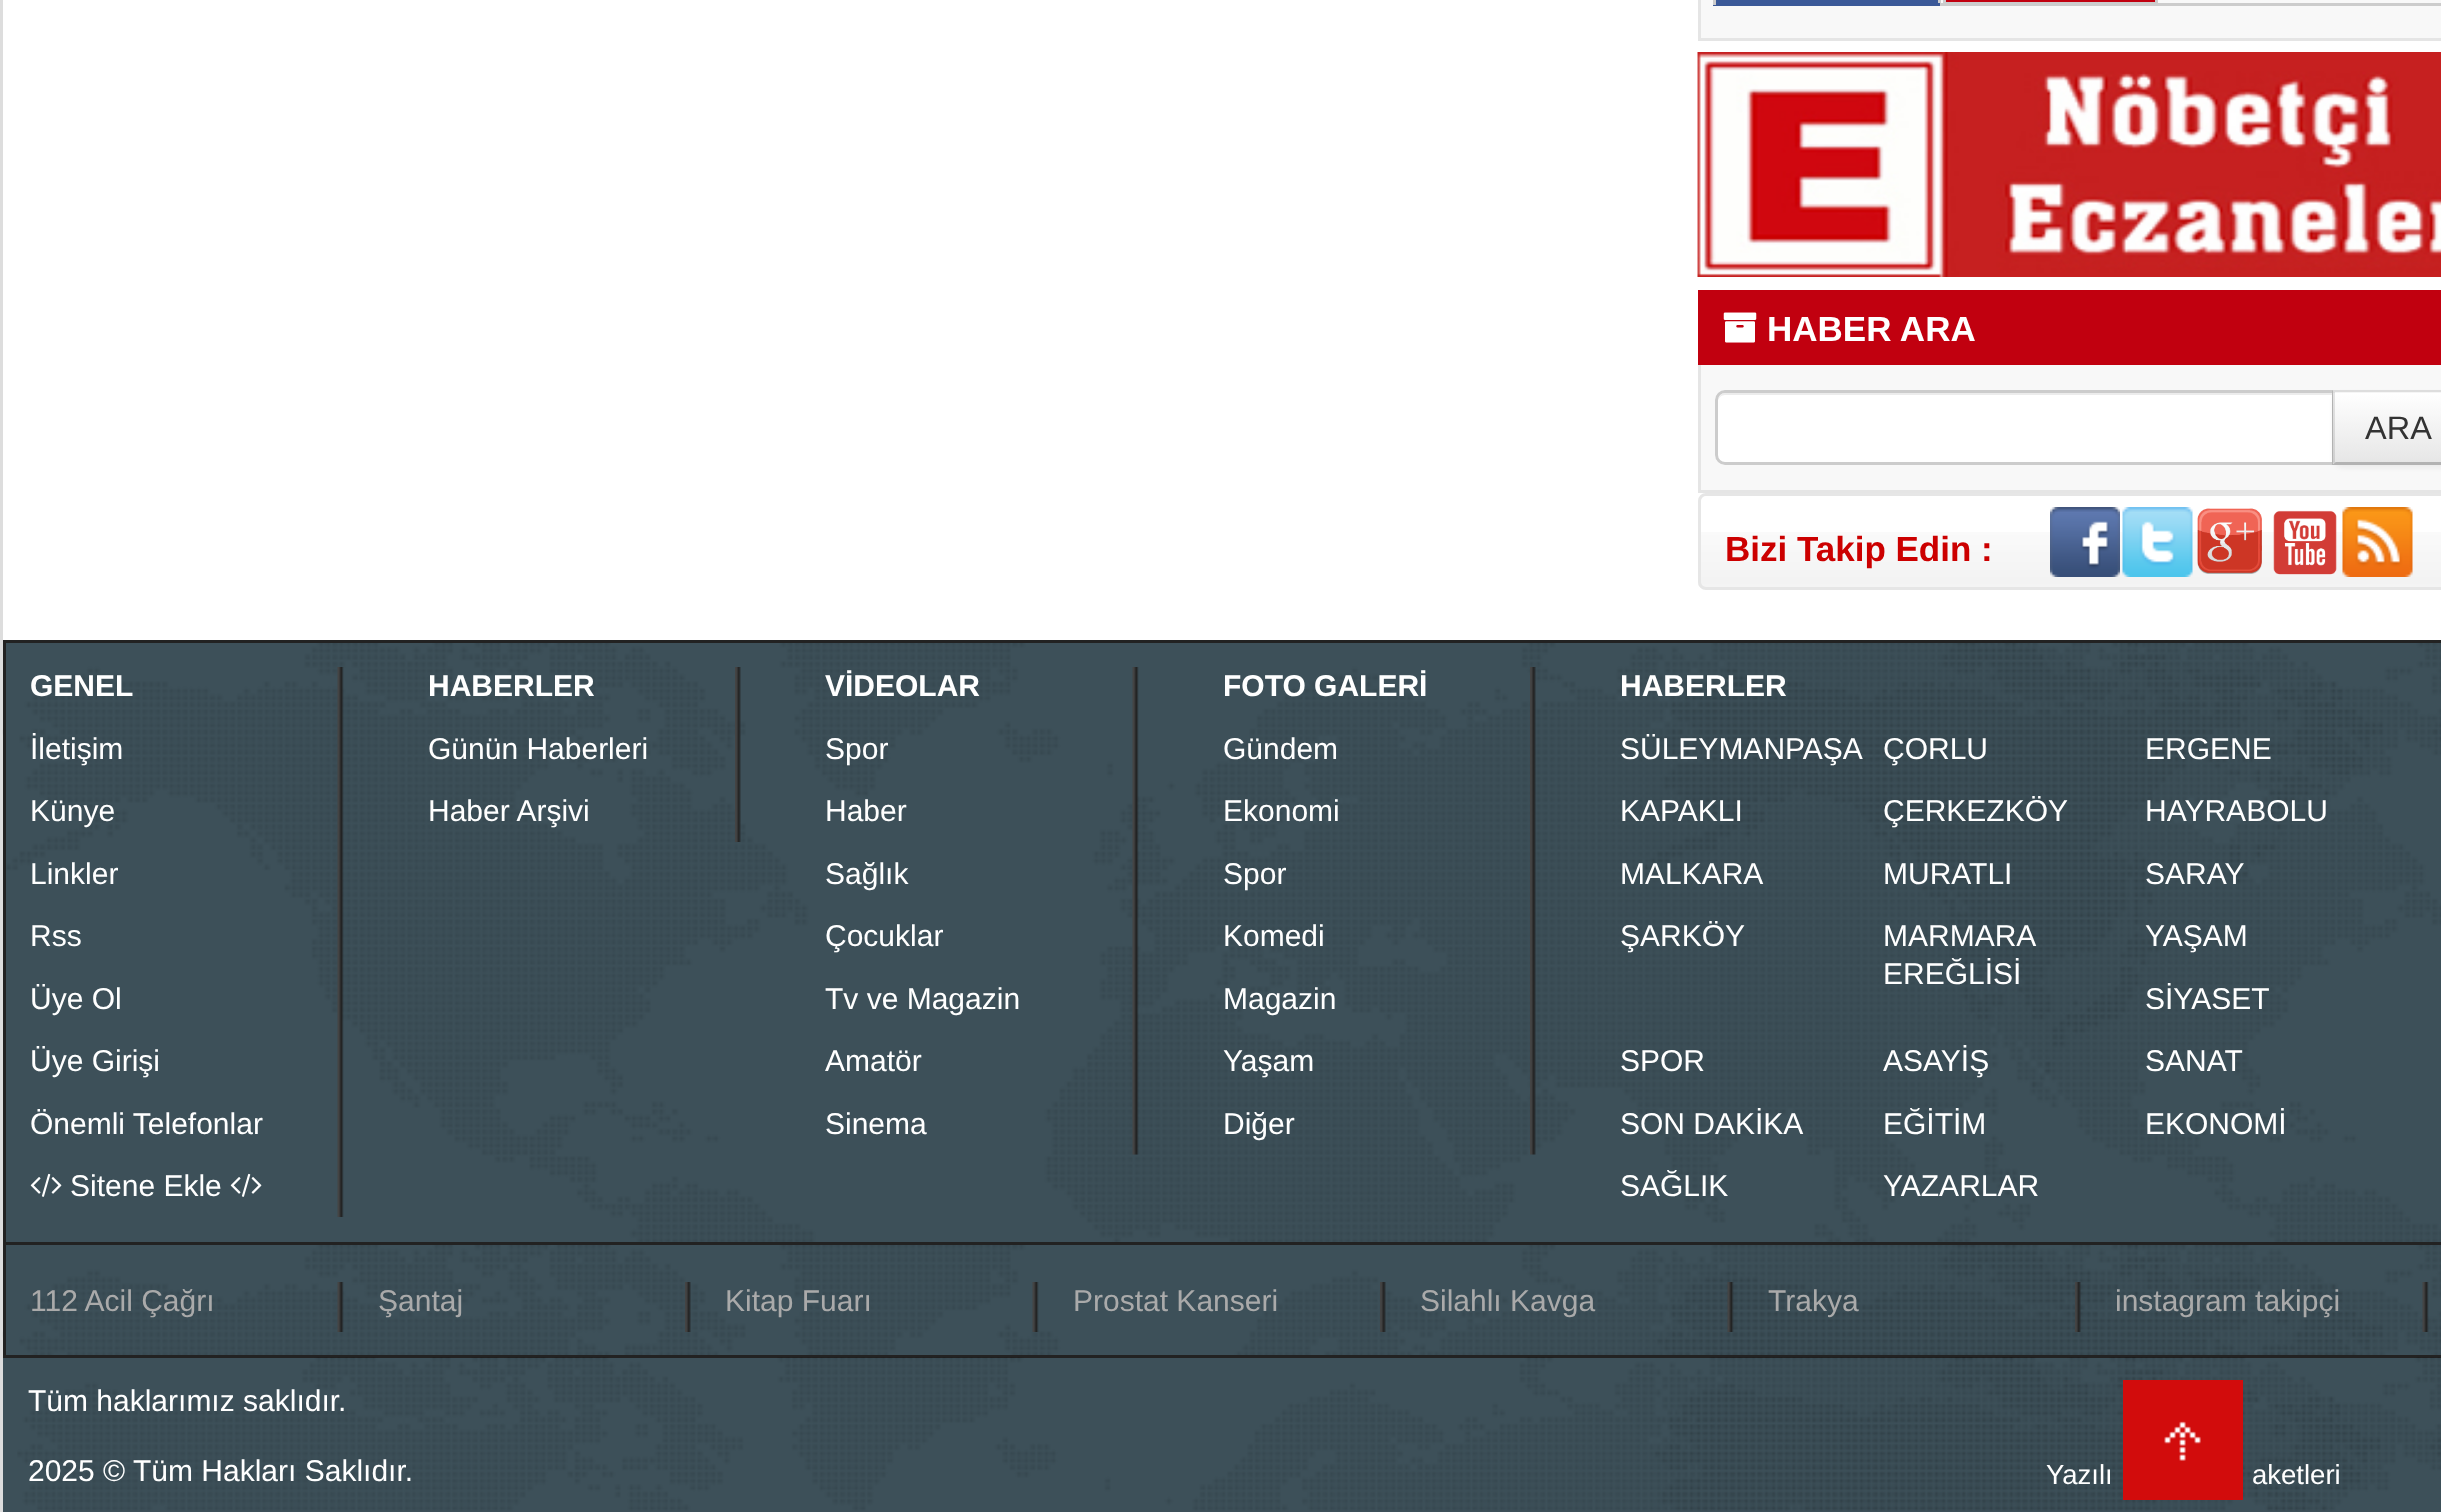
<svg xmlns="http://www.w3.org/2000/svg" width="2441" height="1512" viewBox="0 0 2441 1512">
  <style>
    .t1 { font: bold 35px Liberation Sans; fill: #fff; }
    .t2 { font: 32.5px Liberation Sans; fill: #333; }
    .t3 { font: bold 35px Liberation Sans; fill: #c00; }
    .t4 { font: bold 30px Liberation Sans; fill: #fff; }
    .t5 { font: 30px Liberation Sans; fill: #fff; }
    .t6 { font: 30px Liberation Sans; fill: #aaa; }
    .t7 { font: 27.5px Liberation Sans; fill: #fff; }
  </style>
  <defs>
    <linearGradient id="g1" gradientUnits="userSpaceOnUse" x1="2399" y1="393" x2="2399" y2="463"><stop offset="0" stop-color="#fff"/><stop offset="1" stop-color="#e6e6e6"/></linearGradient>
  </defs>
  <rect width="100%" height="100%" fill="#fff"/>
  <rect x="0" y="0" width="3" height="1512" fill="#ddd"/>
  <rect x="1701" y="0" width="740" height="38" fill="#f8f8f8"/>
  <rect x="1698" y="38" width="743" height="3" fill="#e5e5e5"/>
  <rect x="1698" y="0" width="3" height="40" fill="#e5e5e5"/>
  <rect x="1713" y="0" width="227" height="3" fill="#3b5998"/>
  <rect x="1940" y="3" width="501" height="3" fill="#ccc"/>
  <rect x="1938" y="0" width="3" height="5" fill="#ccc"/>
  <rect x="1713" y="3" width="227" height="3" fill="#3b5998"/>
  <rect x="1713" y="0" width="3" height="5" fill="#ccc"/>
  <rect x="1944.5" y="-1.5" width="212" height="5" fill="#c1000f" stroke="#ccc" stroke-width="3"/>
  <image x="1697" y="52" width="744" height="225" href="images/1.png"/>
  <rect x="1698" y="290" width="743" height="75" fill="#c1000f"/>
  <image x="1723" y="312" width="34" height="31" href="images/2.png"/>
  <text x="1767" y="341" class="t1">HABER ARA</text>
  <rect x="1701" y="365" width="740" height="125" fill="#f8f8f8"/>
  <rect x="1698" y="490" width="743" height="3" fill="#e5e5e5"/>
  <rect x="1698" y="365" width="3" height="128" fill="#e5e5e5"/>
  <path d="M1725 390H2335V465H1725C1719.5 465 1715 460.5 1715 455V400C1715 394.5 1719.5 390 1725 390Z" fill="#fff"/>
  <path d="M1725 395H2332V463H2333V393H1726C1721 393 1718 397 1718 402C1718 398 1721 395 1725 395Z" fill="#ececec"/>
  <path d="M1725 391.5H2333.5V463.5H1725C1720.5 463.5 1716.5 459.5 1716.5 455V400C1716.5 395.5 1720.5 391.5 1725 391.5Z" fill="none" stroke="#ccc" stroke-width="3"/>
  <rect x="2333" y="393" width="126" height="75" rx="10" fill="#0000000d" filter="blur(2.5px)"/>
  <rect x="2333" y="390" width="108" height="75" fill="#f5f5f5"/>
  <rect x="2333" y="393" width="108" height="70" fill="url(#g1)"/>
  <path d="M2335 392H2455C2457 392 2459 393 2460 395L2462 393C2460 391 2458 390 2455 390H2332Z" fill="#ddd"/>
  <path d="M2332 465H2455C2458 465 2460 464 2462 462L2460 460L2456 462H2336Z" fill="#b3b3b3"/>
  <path d="M2332 465L2336 462H2335V392L2332 390Z" fill="#0000001a"/>
  <text x="2365" y="439" class="t2">ARA</text>
  <image x="1698" y="532" width="743" height="55" href="images/3.png"/>
  <rect x="1699.5" y="494.5" width="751" height="94" rx="6.5" fill="none" stroke="#e6e6e6" stroke-width="3"/>
  <text x="1725" y="561" class="t3">Bizi Takip Edin :</text>
  <image x="2050" y="507" width="70" height="70" href="images/4.png"/>
  <image x="2122" y="507" width="71" height="70" href="images/5.png"/>
  <image x="2197" y="508" width="65" height="66" href="images/6.png"/>
  <image x="2273" y="510" width="64" height="65" href="images/7.png"/>
  <image x="2342" y="507" width="71" height="70" href="images/8.png"/>
  <rect x="6" y="643" width="2435" height="599" fill="#3d5059"/>
  <image x="2" y="643" width="2439" height="599" href="images/9.png"/>
  <rect x="4.5" y="641.5" width="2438" height="602" fill="none" stroke="#222" stroke-width="3"/>
  <image x="337" y="667" width="7" height="550" href="images/10.png"/>
  <text x="30" y="696" class="t4">GENEL</text>
  <text x="30" y="759" class="t5">İletişim</text>
  <text x="30" y="821" class="t5">Künye</text>
  <text x="30" y="884" class="t5">Linkler</text>
  <text x="30" y="946" class="t5">Rss</text>
  <text x="30" y="1009" class="t5">Üye Ol</text>
  <text x="30" y="1071" class="t5">Üye Girişi</text>
  <text x="30" y="1134" class="t5">Önemli Telefonlar</text>
  <image x="30" y="1173" width="32" height="24" href="images/11.png"/>
  <text x="70" y="1196" class="t5">Sitene Ekle</text>
  <image x="230" y="1173" width="32" height="24" href="images/11.png"/>
  <image x="735" y="667" width="6" height="175" href="images/12.png"/>
  <text x="428" y="696" class="t4">HABERLER</text>
  <text x="428" y="759" class="t5">Günün Haberleri</text>
  <text x="428" y="821" class="t5">Haber Arşivi</text>
  <image x="1132" y="667" width="7" height="488" href="images/13.png"/>
  <text x="825" y="696" class="t4">VİDEOLAR</text>
  <text x="825" y="759" class="t5">Spor</text>
  <text x="825" y="821" class="t5">Haber</text>
  <text x="825" y="884" class="t5">Sağlık</text>
  <text x="825" y="946" class="t5">Çocuklar</text>
  <text x="825" y="1009" class="t5">Tv ve Magazin</text>
  <text x="825" y="1071" class="t5">Amatör</text>
  <text x="825" y="1134" class="t5">Sinema</text>
  <image x="1530" y="667" width="6" height="488" href="images/14.png"/>
  <text x="1223" y="696" class="t4">FOTO GALERİ</text>
  <text x="1223" y="759" class="t5">Gündem</text>
  <text x="1223" y="821" class="t5">Ekonomi</text>
  <text x="1223" y="884" class="t5">Spor</text>
  <text x="1223" y="946" class="t5">Komedi</text>
  <text x="1223" y="1009" class="t5">Magazin</text>
  <text x="1223" y="1071" class="t5">Yaşam</text>
  <text x="1223" y="1134" class="t5">Diğer</text>
  <text x="1620" y="696" class="t4">HABERLER</text>
  <text x="1620" y="759" class="t5">SÜLEYMANPAŞA</text>
  <text x="1883" y="759" class="t5">ÇORLU</text>
  <text x="2145" y="759" class="t5">ERGENE</text>
  <text x="1620" y="821" class="t5">KAPAKLI</text>
  <text x="1883" y="821" class="t5">ÇERKEZKÖY</text>
  <text x="2145" y="821" class="t5">HAYRABOLU</text>
  <text x="1620" y="884" class="t5">MALKARA</text>
  <text x="1883" y="884" class="t5">MURATLI</text>
  <text x="2145" y="884" class="t5">SARAY</text>
  <text x="1620" y="946" class="t5">ŞARKÖY</text>
  <text x="1883" y="946" class="t5">MARMARA</text>
  <text x="1883" y="984" class="t5">EREĞLİSİ</text>
  <text x="2145" y="946" class="t5">YAŞAM</text>
  <text x="2145" y="1009" class="t5">SİYASET</text>
  <text x="1620" y="1071" class="t5">SPOR</text>
  <text x="1883" y="1071" class="t5">ASAYİŞ</text>
  <text x="2145" y="1071" class="t5">SANAT</text>
  <text x="1620" y="1134" class="t5">SON DAKİKA</text>
  <text x="1883" y="1134" class="t5">EĞİTİM</text>
  <text x="2145" y="1134" class="t5">EKONOMİ</text>
  <text x="1620" y="1196" class="t5">SAĞLIK</text>
  <text x="1883" y="1196" class="t5">YAZARLAR</text>
  <rect x="6" y="1245" width="2435" height="110" fill="#3d5059"/>
  <image x="2" y="1245" width="2439" height="110" href="images/15.png"/>
  <rect x="3" y="1355" width="2438" height="3" fill="#222"/>
  <rect x="3" y="1245" width="3" height="113" fill="#222"/>
  <image x="337" y="1282" width="7" height="50" href="images/16.png"/>
  <text x="30" y="1311" class="t6">112 Acil Çağrı</text>
  <image x="685" y="1282" width="6" height="50" href="images/17.png"/>
  <text x="378" y="1311" class="t6">Şantaj</text>
  <image x="1032" y="1282" width="7" height="50" href="images/18.png"/>
  <text x="725" y="1311" class="t6">Kitap Fuarı</text>
  <image x="1380" y="1282" width="6" height="50" href="images/19.png"/>
  <text x="1073" y="1311" class="t6">Prostat Kanseri</text>
  <image x="1727" y="1282" width="7" height="50" href="images/20.png"/>
  <text x="1420" y="1311" class="t6">Silahlı Kavga</text>
  <image x="2075" y="1282" width="6" height="50" href="images/21.png"/>
  <text x="1768" y="1311" class="t6">Trakya</text>
  <image x="2422" y="1282" width="7" height="50" href="images/22.png"/>
  <text x="2115" y="1311" class="t6">instagram takipçi</text>
  <rect x="3" y="1358" width="2438" height="154" fill="#3d5059"/>
  <image x="17" y="1357" width="2424" height="154" href="images/23.png"/>
  <text x="28" y="1411" class="t5">Tüm haklarımız saklıdır.</text>
  <text x="28" y="1481" class="t5">2025 ©</text>
  <text x="133" y="1481" class="t5">Tüm Hakları Saklıdır.</text>
  <text x="2046" y="1484" class="t7">Yazılı</text>
  <text x="2252" y="1484" class="t7">aketleri</text>
  <rect x="2123" y="1380" width="120" height="120" fill="#d20c0c"/>
  <image x="2164" y="1421" width="37" height="40" href="images/24.png"/>
</svg>
